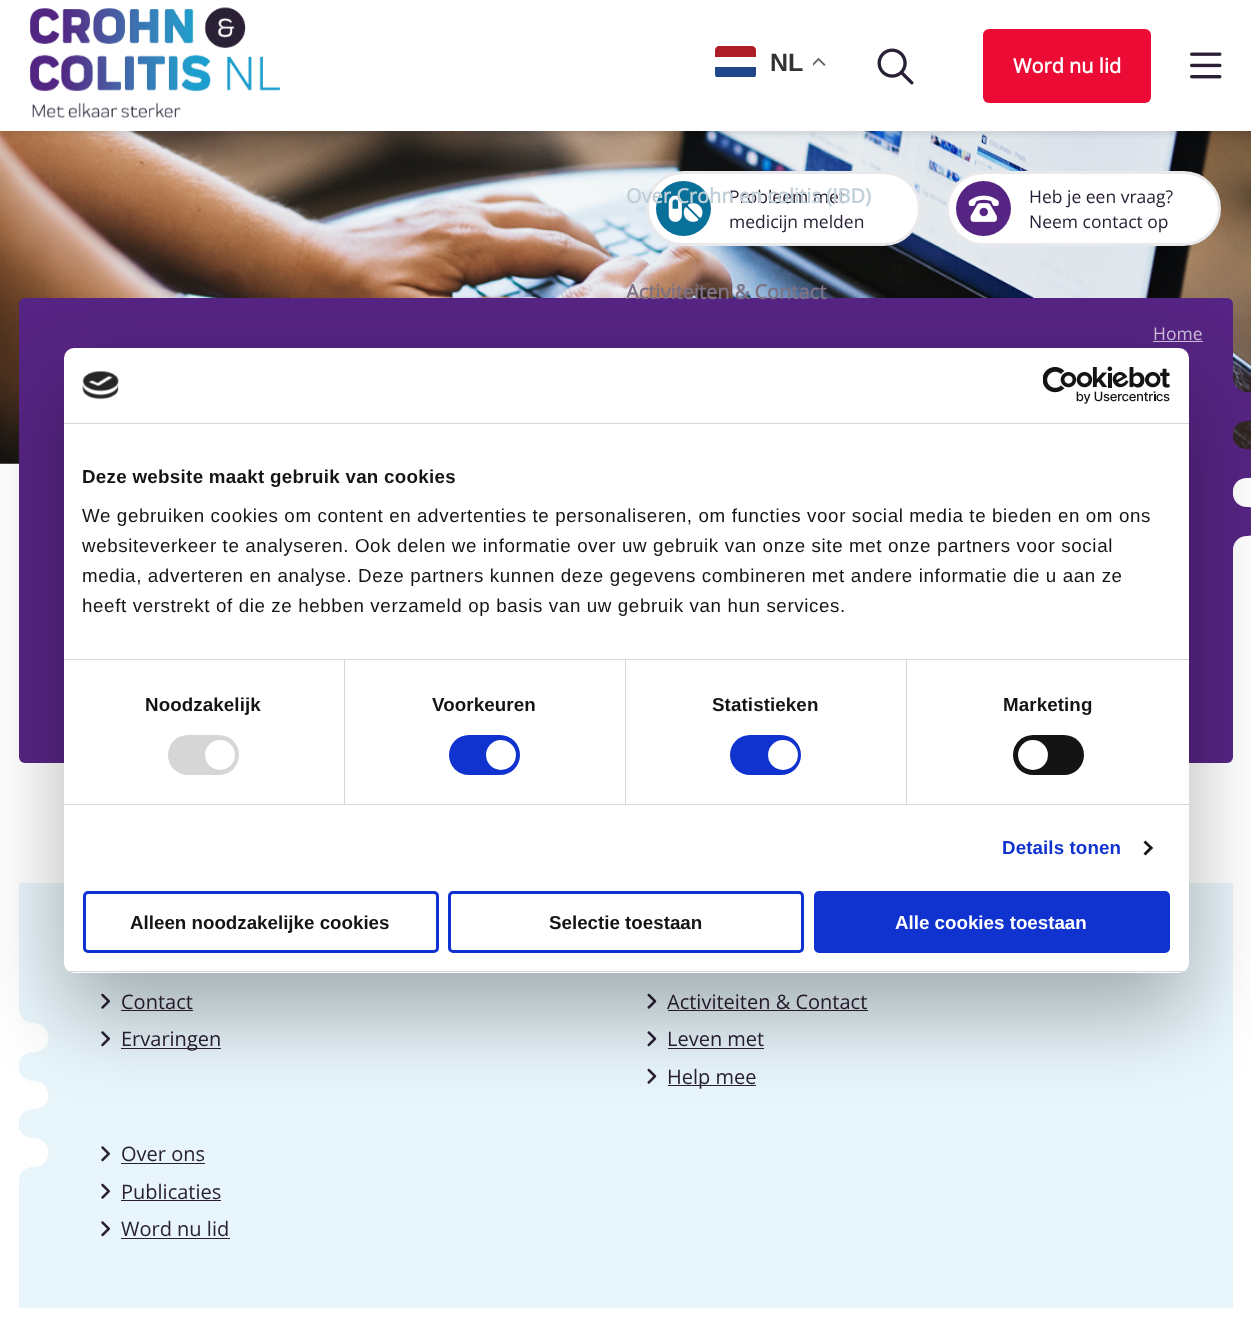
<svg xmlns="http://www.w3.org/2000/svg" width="1251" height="1320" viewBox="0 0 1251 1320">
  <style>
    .t1 { font: bold 25px Liberation Sans; fill: #333; }
    .t2 { font: bold 20px Open Sans; fill: #fff; }
    .t3 { font: 17.5px Open Sans; fill: #292035; }
    .t4 { font: bold 20px Open Sans; fill: #c0cfd8; }
    .t5 { font: bold 20px Open Sans; fill: #7d7385; }
    .t6 { font: 17.5px Open Sans; fill: #ccbeda; }
    .t7 { font: 20px Open Sans; fill: #292035; }
    .t8 { font: bold 18.75px Liberation Sans; letter-spacing: 0.3px; fill: #141414; }
    .t9 { font: 18.75px Liberation Sans; letter-spacing: 0.62px; fill: #141414; }
    .t10 { font: bold 18.75px Liberation Sans; letter-spacing: 0.1px; fill: #141414; }
    .t11 { font: bold 18.75px Liberation Sans; letter-spacing: 0.1px; fill: #1032cf; }
    .t12 { font: bold 18.75px Liberation Sans; fill: #141414; }
    .t13 { font: bold 18.75px Liberation Sans; fill: #fff; }
  </style>
  <defs>
    <clipPath id="clip1"><rect x="715" y="46" width="41" height="32" rx="4"/></clipPath>
    <clipPath id="clip2"><rect x="1233" y="378" width="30" height="172"/></clipPath>
    <clipPath id="clip3"><rect x="19" y="1009" width="30" height="172"/></clipPath>
    <clipPath id="clip4"><rect x="64" y="348" width="1125" height="625" rx="10"/></clipPath>
  </defs>
  <rect width="100%" height="100%" fill="#fff"/>
  <image x="0" y="131" width="1251" height="333" href="images/7.png"/>
  <rect x="0" y="3" width="1251" height="131" fill="#0000001a" filter="blur(3px)"/>
  <rect x="0" y="0" width="1251" height="131" fill="#fff"/>
  <image x="30" y="7" width="250" height="111" href="images/1.png"/>
  <g clip-path="url(#clip1)">
    <rect x="715" y="67" width="41" height="10" fill="#21468b"/>
  </g>
  <path d="M719 46H752C754 46 756 48 756 50V57H715V50C715 48 717 46 719 46Z" fill="#ae1c28"/>
  <text x="770" y="71" class="t1">NL</text>
  <image x="813" y="57" width="13" height="9" href="images/2.png"/>
  <image x="877" y="48" width="37" height="37" href="images/3.png"/>
  <rect x="983" y="29" width="168" height="74" rx="6" fill="#ec0b35"/>
  <text x="1013" y="73" class="t2">Word nu lid</text>
  <rect x="647.5" y="172.5" width="272" height="72" rx="36" fill="#fff" stroke="#e9e8ea" stroke-width="3"/>
  <circle cx="683.5" cy="208.5" r="27.5" fill="#087099"/>
  <text x="729" y="203" class="t3">Probleem met</text>
  <image x="668" y="195" width="35" height="27" href="images/4.png"/>
  <text x="626" y="203" class="t4">Over Crohn en colitis (IBD)</text>
  <rect x="19" y="298" width="1214" height="465" rx="6" fill="#562583"/>
  <text x="626" y="299" class="t5">Activiteiten &amp; Contact</text>
  <text x="729" y="228" class="t3">medicijn melden</text>
  <rect x="947.5" y="172.5" width="272" height="72" rx="36" fill="#fff" stroke="#e9e8ea" stroke-width="3"/>
  <circle cx="983.5" cy="208.5" r="27.5" fill="#562583"/>
  <text x="1029" y="203" class="t3">Heb je een vraag?</text>
  <image x="968" y="195" width="31" height="27" href="images/5.png"/>
  <text x="1029" y="228" class="t3">Neem contact op</text>
  <image x="1190" y="52" width="32" height="27" href="images/6.png"/>
  <text x="1153" y="340" class="t6">Home</text>
  <rect x="1153" y="341" width="50" height="1" fill="#ccbeda"/>
  <g clip-path="url(#clip2)">
    <path d="M1233 378C1233 385 1239 392 1247 392C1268 392 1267 421 1247 421C1228 421 1228 449 1247 449C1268 449 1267 479 1247 478C1228 478 1228 507 1247 507C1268 507 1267 536 1247 536C1239 536 1233 542 1233 550Z" fill="#562583"/>
  </g>
  <rect x="19" y="883" width="1214" height="425" fill="#e8f5fa"/>
  <g clip-path="url(#clip3)">
    <path d="M19 1009C19 1017 25 1023 33 1023C54 1023 53 1053 33 1052C14 1052 14 1080 33 1081C54 1081 53 1110 33 1109C14 1110 14 1138 33 1138C54 1138 53 1168 33 1167C25 1167 19 1173 19 1181Z" fill="#fff"/>
  </g>
  <image x="101" y="993" width="9" height="16" href="images/8.png"/>
  <text x="121" y="1009" class="t7">Contact</text>
  <rect x="121" y="1010" width="72" height="1" fill="#292035"/>
  <image x="101" y="1031" width="9" height="16" href="images/9.png"/>
  <rect x="121" y="1048" width="100" height="1" fill="#292035"/>
  <text x="121" y="1046" class="t7">Ervaringen</text>
  <image x="647" y="993" width="10" height="16" href="images/10.png"/>
  <text x="667" y="1009" class="t7">Activiteiten &amp; Contact</text>
  <rect x="668" y="1010" width="200" height="1" fill="#292035"/>
  <image x="647" y="1031" width="10" height="16" href="images/11.png"/>
  <text x="667" y="1046" class="t7">Leven met</text>
  <rect x="668" y="1048" width="96" height="1" fill="#292035"/>
  <image x="647" y="1068" width="10" height="16" href="images/10.png"/>
  <rect x="668" y="1085" width="88" height="1" fill="#292035"/>
  <text x="667" y="1084" class="t7">Help mee</text>
  <image x="101" y="1146" width="9" height="16" href="images/9.png"/>
  <text x="121" y="1161" class="t7">Over ons</text>
  <rect x="121" y="1163" width="84" height="1" fill="#292035"/>
  <image x="101" y="1183" width="9" height="16" href="images/8.png"/>
  <text x="121" y="1199" class="t7">Publicaties</text>
  <rect x="121" y="1200" width="100" height="1" fill="#292035"/>
  <image x="101" y="1221" width="9" height="16" href="images/9.png"/>
  <text x="121" y="1236" class="t7">Word nu lid</text>
  <rect x="121" y="1238" width="109" height="1" fill="#292035"/>
  <rect x="64" y="388" width="1125" height="625" rx="10" fill="#0000004d" filter="blur(42.5px)"/>
  <rect x="64" y="348" width="1125" height="625" rx="10" fill="#fff"/>
  <rect x="64" y="423" width="1125" height="1" fill="#d6d6d6"/>
  <image x="82" y="371" width="37" height="29" href="images/12.png"/>
  <image x="1043" y="366" width="127" height="38" href="images/13.png"/>
  <rect x="64" y="659" width="1125" height="1" fill="#d6d6d6"/>
  <text x="82" y="483" class="t8">Deze website maakt gebruik van cookies</text>
  <text x="82" y="522" class="t9">We gebruiken cookies om content en advertenties te personaliseren, om functies voor social media te bieden en om ons</text>
  <text x="82" y="552" class="t9">websiteverkeer te analyseren. Ook delen we informatie over uw gebruik van onze site met onze partners voor social</text>
  <text x="82" y="582" class="t9">media, adverteren en analyse. Deze partners kunnen deze gegevens combineren met andere informatie die u aan ze</text>
  <text x="82" y="612" class="t9">heeft verstrekt of die ze hebben verzameld op basis van uw gebruik van hun services.</text>
  <rect x="64" y="804" width="1125" height="1" fill="#d6d6d6"/>
  <rect x="344" y="660" width="1" height="144" fill="#d6d6d6"/>
  <text x="145" y="711" class="t10">Noodzakelijk</text>
  <rect x="168" y="735" width="71" height="40" rx="20" fill="#d6d6d6"/>
  <circle cx="220" cy="755" r="15" fill="#fff"/>
  <rect x="625" y="660" width="1" height="144" fill="#d6d6d6"/>
  <text x="432" y="711" class="t10">Voorkeuren</text>
  <rect x="449" y="735" width="71" height="40" rx="20" fill="#1032cf"/>
  <circle cx="501" cy="755" r="15" fill="#fff"/>
  <rect x="906" y="660" width="1" height="144" fill="#d6d6d6"/>
  <text x="712" y="711" class="t10">Statistieken</text>
  <rect x="730" y="735" width="71" height="40" rx="20" fill="#1032cf"/>
  <circle cx="783" cy="755" r="15" fill="#fff"/>
  <text x="1003" y="711" class="t10">Marketing</text>
  <rect x="1013" y="735" width="71" height="40" rx="20" fill="#141414"/>
  <circle cx="1033" cy="755" r="15" fill="#fff"/>
  <text x="1002" y="854" class="t11">Details tonen</text>
  <path d="M1145.5 840.5L1153 848L1151 849.5L1143.5 842.5Z" fill="#141414"/>
  <path d="M1151 846L1153 848L1145.5 855.5L1143.5 853.5Z" fill="#141414"/>
  <g clip-path="url(#clip4)">
    <rect x="64" y="971" width="1125" height="1" fill="#d6d6d6"/>
  </g>
  <rect x="84.5" y="892.5" width="353" height="59" rx="3.5" fill="none" stroke="#1032cf" stroke-width="3"/>
  <text x="130" y="929" class="t12">Alleen noodzakelijke cookies</text>
  <rect x="449.5" y="892.5" width="353" height="59" rx="3.5" fill="none" stroke="#1032cf" stroke-width="3"/>
  <text x="549" y="929" class="t12">Selectie toestaan</text>
  <rect x="815.5" y="892.5" width="353" height="59" rx="3.5" fill="#1032cf" stroke="#1032cf" stroke-width="3"/>
  <text x="895" y="929" class="t13">Alle cookies toestaan</text>
</svg>
